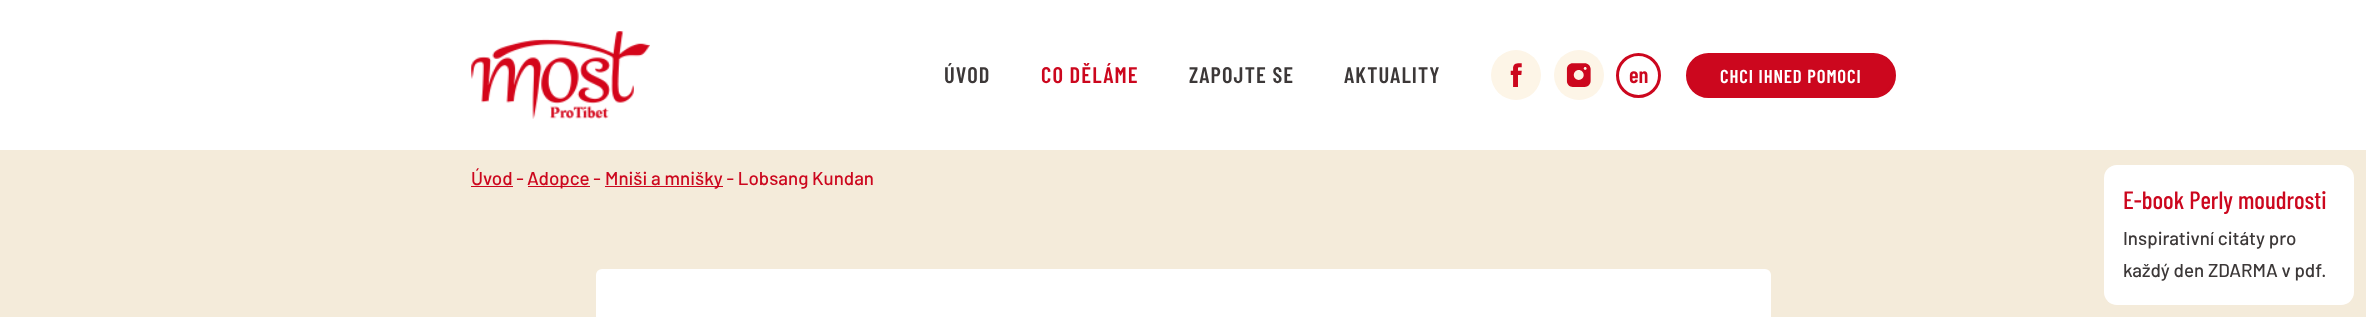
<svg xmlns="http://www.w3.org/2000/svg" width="2366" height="317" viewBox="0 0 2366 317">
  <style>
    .t1 { font: 600 22.5px Barlow Condensed; letter-spacing: 1.1px; fill: #3c3838; }
    .t2 { font: 600 22.5px Barlow Condensed; letter-spacing: 1.1px; fill: #cc071e; }
    .t3 { font: 600 22.5px Barlow Condensed; fill: #cc071e; }
    .t4 { font: 600 18.75px Barlow Condensed; letter-spacing: 0.9px; fill: #fff; }
    .t5 { font: 500 18.75px Barlow; fill: #cc071e; }
    .t6 { font: 500 25px Barlow Condensed; fill: #cc071e; }
    .t7 { font: 500 18.75px Barlow; fill: #3c3838; }
  </style>
  <rect width="100%" height="100%" fill="#f4ebda"/>
  <rect x="0" y="0" width="2366" height="150" fill="#fff"/>
  <image x="471" y="31" width="179" height="88" href="images/1.png"/>
  <text x="944" y="83" class="t1">ÚVOD</text>
  <text x="1041" y="83" class="t2">CO DĚLÁME</text>
  <text x="1189" y="83" class="t1">ZAPOJTE SE</text>
  <text x="1344" y="83" class="t1">AKTUALITY</text>
  <circle cx="1516" cy="75" r="25" fill="#fdf5e7"/>
  <image x="1510" y="63" width="12" height="24" href="images/2.png"/>
  <circle cx="1579" cy="75" r="25" fill="#fdf5e7"/>
  <image x="1566" y="63" width="25" height="24" href="images/3.png"/>
  <circle cx="1638.5" cy="75.5" r="21" fill="none" stroke="#cc071e" stroke-width="3"/>
  <text x="1629" y="83" class="t3">en</text>
  <rect x="1687.5" y="54.5" width="207" height="42" rx="21" fill="#cc071e" stroke="#cc071e" stroke-width="3"/>
  <text x="1720" y="83" class="t4">CHCI IHNED POMOCI</text>
  <text x="471" y="185" class="t5">Úvod -</text>
  <rect x="471" y="186" width="42" height="1" fill="#cc071e"/>
  <rect x="528" y="186" width="62" height="1" fill="#cc071e"/>
  <text x="527" y="185" class="t5">Adopce -</text>
  <rect x="605" y="186" width="118" height="1" fill="#cc071e"/>
  <text x="605" y="185" class="t5">Mniši a mnišky - Lobsang Kundan</text>
  <rect x="596" y="269" width="1175" height="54" rx="6" fill="#fff"/>
  <rect x="2104" y="165" width="250" height="140" rx="13" fill="#fff"/>
  <text x="2123" y="209" class="t6">E-book Perly moudrosti</text>
  <text x="2123" y="245" class="t7">Inspirativní citáty pro</text>
  <text x="2123" y="277" class="t7">každý den ZDARMA v pdf.</text>
</svg>
